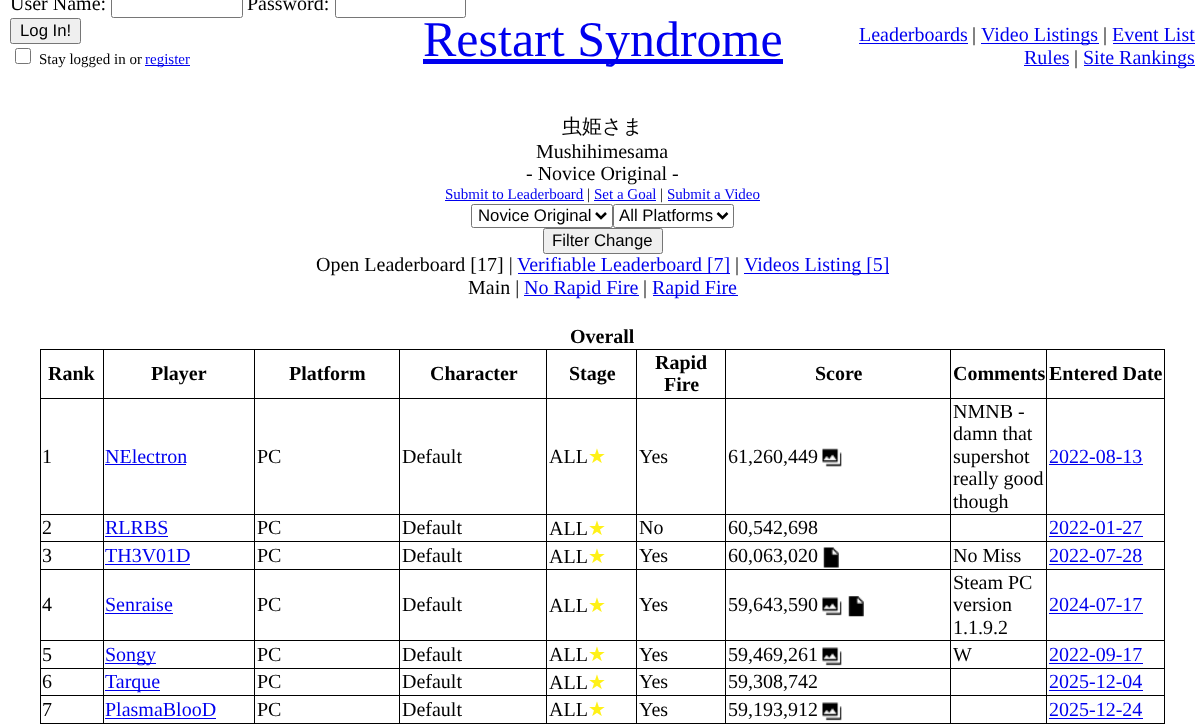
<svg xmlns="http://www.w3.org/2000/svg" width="1204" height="724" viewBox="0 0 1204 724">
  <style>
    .t1 { font: 20px Liberation Serif; fill: #000; }
    .t2 { font: 16.75px Liberation Sans; fill: #000; }
    .t3 { font: 15px Liberation Serif; fill: #000; }
    .t4 { font: 15px Liberation Serif; fill: #00e; }
    .t5 { font: 50px Liberation Serif; fill: #00e; }
    .t6 { font: 20px Liberation Serif; fill: #00e; }
    .t7 { font: 500 20px WenQuanYi Zen Hei; fill: #000; }
    .t8 { font: bold 20px Liberation Serif; fill: #000; }
    .t9 { font: 20px DejaVu Sans; fill: #fff117; }
  </style>
  <rect width="100%" height="100%" fill="#fff"/>
  <text x="10" y="10" class="t1">User Name:</text>
  <rect x="111.5" y="-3.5" width="131" height="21" rx="2" fill="none" stroke="#767676"/>
  <text x="247" y="10" class="t1">Password:</text>
  <rect x="335.5" y="-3.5" width="130" height="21" rx="2" fill="none" stroke="#767676"/>
  <rect x="10.5" y="18.5" width="70" height="25" rx="2" fill="#efefef" stroke="#767676"/>
  <text x="20" y="36" class="t2">Log In!</text>
  <rect x="15.5" y="48.5" width="15" height="15" rx="2" fill="none" stroke="#767676"/>
  <text x="39" y="64" class="t3">Stay logged in or</text>
  <rect x="145" y="65" width="45" height="1" fill="#00e"/>
  <text x="145" y="64" class="t4">register</text>
  <rect x="423" y="59" width="360" height="5" fill="#00e"/>
  <text x="423" y="56" class="t5">Restart Syndrome</text>
  <text x="859" y="41" class="t6">Leaderboards</text>
  <rect x="859" y="43" width="109" height="1" fill="#00e"/>
  <text x="972" y="41" class="t1">|</text>
  <rect x="981" y="43" width="118" height="1" fill="#00e"/>
  <text x="981" y="41" class="t6">Video Listings</text>
  <text x="1103" y="41" class="t1">|</text>
  <text x="1112" y="41" class="t6">Event List</text>
  <rect x="1113" y="43" width="82" height="1" fill="#00e"/>
  <text x="1024" y="64" class="t6">Rules</text>
  <rect x="1024" y="65" width="45" height="1" fill="#00e"/>
  <text x="1074" y="64" class="t1">|</text>
  <rect x="1084" y="65" width="111" height="1" fill="#00e"/>
  <text x="1083" y="64" class="t6">Site Rankings</text>
  <text x="562" y="133" class="t7">虫姫さま</text>
  <text x="536" y="158" class="t1">Mushihimesama</text>
  <text x="526" y="180" class="t1">- Novice Original -</text>
  <text x="445" y="199" class="t4">Submit to Leaderboard</text>
  <rect x="445" y="200" width="139" height="1" fill="#00e"/>
  <text x="587" y="199" class="t3">|</text>
  <text x="594" y="199" class="t4">Set a Goal</text>
  <rect x="594" y="200" width="62" height="1" fill="#00e"/>
  <text x="660" y="199" class="t3">|</text>
  <text x="667" y="199" class="t4">Submit a Video</text>
  <rect x="668" y="200" width="92" height="1" fill="#00e"/>
  <rect x="471.5" y="204.5" width="141" height="23" rx="2" fill="none" stroke="#767676"/>
  <path d="M596 213L601 218L606 213" fill="none" stroke="#000" stroke-width="2.5"/>
  <text x="478" y="221" class="t2">Novice Original</text>
  <rect x="613.5" y="204.5" width="120" height="23" rx="2" fill="none" stroke="#767676"/>
  <path d="M717.5 213L722.5 218L727.5 213" fill="none" stroke="#000" stroke-width="2.5"/>
  <text x="619" y="221" class="t2">All Platforms</text>
  <rect x="543.5" y="228.5" width="119" height="25" rx="2" fill="#efefef" stroke="#767676"/>
  <text x="552" y="246" class="t2">Filter Change</text>
  <text x="316" y="271" class="t1">Open Leaderboard [17] |</text>
  <rect x="518" y="273" width="212" height="1" fill="#00e"/>
  <text x="517" y="271" class="t6">Verifiable Leaderboard [7]</text>
  <text x="735" y="271" class="t1">|</text>
  <rect x="744" y="273" width="145" height="1" fill="#00e"/>
  <text x="744" y="271" class="t6">Videos Listing [5]</text>
  <text x="468" y="294" class="t1">Main |</text>
  <rect x="524" y="295" width="115" height="1" fill="#00e"/>
  <text x="524" y="294" class="t6">No Rapid Fire</text>
  <text x="643" y="294" class="t1">|</text>
  <rect x="653" y="295" width="85" height="1" fill="#00e"/>
  <text x="652" y="294" class="t6">Rapid Fire</text>
  <text x="570" y="343" class="t8">Overall</text>
  <rect x="1046" y="349" width="119" height="1" fill="#000"/>
  <rect x="1046" y="398" width="119" height="1" fill="#000"/>
  <rect x="1046" y="514" width="119" height="1" fill="#000"/>
  <rect x="1046" y="541" width="119" height="1" fill="#000"/>
  <rect x="1046" y="569" width="119" height="1" fill="#000"/>
  <rect x="1046" y="640" width="119" height="1" fill="#000"/>
  <rect x="1046" y="668" width="119" height="1" fill="#000"/>
  <rect x="1046" y="695" width="119" height="1" fill="#000"/>
  <rect x="40" y="723" width="1125" height="1" fill="#000"/>
  <rect x="1046" y="695" width="1" height="29" fill="#000"/>
  <rect x="950" y="695" width="98" height="1" fill="#000"/>
  <rect x="1046" y="668" width="1" height="28" fill="#000"/>
  <rect x="950" y="668" width="98" height="1" fill="#000"/>
  <rect x="1046" y="640" width="1" height="29" fill="#000"/>
  <rect x="950" y="640" width="98" height="1" fill="#000"/>
  <rect x="1046" y="569" width="1" height="72" fill="#000"/>
  <rect x="950" y="569" width="98" height="1" fill="#000"/>
  <rect x="1046" y="541" width="1" height="29" fill="#000"/>
  <rect x="950" y="541" width="98" height="1" fill="#000"/>
  <rect x="1046" y="514" width="1" height="29" fill="#000"/>
  <rect x="950" y="514" width="98" height="1" fill="#000"/>
  <rect x="1046" y="398" width="1" height="117" fill="#000"/>
  <rect x="950" y="398" width="98" height="1" fill="#000"/>
  <rect x="1046" y="349" width="1" height="50" fill="#000"/>
  <rect x="950" y="349" width="98" height="1" fill="#000"/>
  <rect x="950" y="695" width="1" height="29" fill="#000"/>
  <rect x="725" y="695" width="226" height="1" fill="#000"/>
  <rect x="950" y="668" width="1" height="28" fill="#000"/>
  <rect x="725" y="668" width="226" height="1" fill="#000"/>
  <rect x="950" y="640" width="1" height="29" fill="#000"/>
  <rect x="725" y="640" width="226" height="1" fill="#000"/>
  <rect x="950" y="569" width="1" height="72" fill="#000"/>
  <rect x="725" y="569" width="226" height="1" fill="#000"/>
  <rect x="950" y="541" width="1" height="29" fill="#000"/>
  <rect x="725" y="541" width="226" height="1" fill="#000"/>
  <rect x="950" y="514" width="1" height="29" fill="#000"/>
  <rect x="725" y="514" width="226" height="1" fill="#000"/>
  <rect x="950" y="398" width="1" height="117" fill="#000"/>
  <rect x="725" y="398" width="226" height="1" fill="#000"/>
  <rect x="950" y="349" width="1" height="50" fill="#000"/>
  <rect x="725" y="349" width="226" height="1" fill="#000"/>
  <rect x="725" y="695" width="1" height="29" fill="#000"/>
  <rect x="636" y="695" width="90" height="1" fill="#000"/>
  <rect x="725" y="668" width="1" height="28" fill="#000"/>
  <rect x="636" y="668" width="90" height="1" fill="#000"/>
  <rect x="725" y="640" width="1" height="29" fill="#000"/>
  <rect x="636" y="640" width="90" height="1" fill="#000"/>
  <rect x="725" y="569" width="1" height="72" fill="#000"/>
  <rect x="636" y="569" width="90" height="1" fill="#000"/>
  <rect x="725" y="541" width="1" height="29" fill="#000"/>
  <rect x="636" y="541" width="90" height="1" fill="#000"/>
  <rect x="725" y="514" width="1" height="29" fill="#000"/>
  <rect x="636" y="514" width="90" height="1" fill="#000"/>
  <rect x="725" y="398" width="1" height="117" fill="#000"/>
  <rect x="636" y="398" width="90" height="1" fill="#000"/>
  <rect x="725" y="349" width="1" height="50" fill="#000"/>
  <rect x="636" y="349" width="90" height="1" fill="#000"/>
  <rect x="636" y="695" width="1" height="29" fill="#000"/>
  <rect x="546" y="695" width="92" height="1" fill="#000"/>
  <rect x="636" y="668" width="1" height="28" fill="#000"/>
  <rect x="546" y="668" width="92" height="1" fill="#000"/>
  <rect x="636" y="640" width="1" height="29" fill="#000"/>
  <rect x="546" y="640" width="92" height="1" fill="#000"/>
  <rect x="636" y="569" width="1" height="72" fill="#000"/>
  <rect x="546" y="569" width="92" height="1" fill="#000"/>
  <rect x="636" y="541" width="1" height="29" fill="#000"/>
  <rect x="546" y="541" width="92" height="1" fill="#000"/>
  <rect x="636" y="514" width="1" height="29" fill="#000"/>
  <rect x="546" y="514" width="92" height="1" fill="#000"/>
  <rect x="636" y="398" width="1" height="117" fill="#000"/>
  <rect x="546" y="398" width="92" height="1" fill="#000"/>
  <rect x="636" y="349" width="1" height="50" fill="#000"/>
  <rect x="546" y="349" width="92" height="1" fill="#000"/>
  <rect x="546" y="695" width="1" height="29" fill="#000"/>
  <rect x="399" y="695" width="149" height="1" fill="#000"/>
  <rect x="546" y="668" width="1" height="28" fill="#000"/>
  <rect x="399" y="668" width="149" height="1" fill="#000"/>
  <rect x="546" y="640" width="1" height="29" fill="#000"/>
  <rect x="399" y="640" width="149" height="1" fill="#000"/>
  <rect x="546" y="569" width="1" height="72" fill="#000"/>
  <rect x="399" y="569" width="149" height="1" fill="#000"/>
  <rect x="546" y="541" width="1" height="29" fill="#000"/>
  <rect x="399" y="541" width="149" height="1" fill="#000"/>
  <rect x="546" y="514" width="1" height="29" fill="#000"/>
  <rect x="399" y="514" width="149" height="1" fill="#000"/>
  <rect x="546" y="398" width="1" height="117" fill="#000"/>
  <rect x="399" y="398" width="149" height="1" fill="#000"/>
  <rect x="546" y="349" width="1" height="50" fill="#000"/>
  <rect x="399" y="349" width="149" height="1" fill="#000"/>
  <rect x="399" y="695" width="1" height="29" fill="#000"/>
  <rect x="254" y="695" width="146" height="1" fill="#000"/>
  <rect x="399" y="668" width="1" height="28" fill="#000"/>
  <rect x="254" y="668" width="146" height="1" fill="#000"/>
  <rect x="399" y="640" width="1" height="29" fill="#000"/>
  <rect x="254" y="640" width="146" height="1" fill="#000"/>
  <rect x="399" y="569" width="1" height="72" fill="#000"/>
  <rect x="254" y="569" width="146" height="1" fill="#000"/>
  <rect x="399" y="541" width="1" height="29" fill="#000"/>
  <rect x="254" y="541" width="146" height="1" fill="#000"/>
  <rect x="399" y="514" width="1" height="29" fill="#000"/>
  <rect x="254" y="514" width="146" height="1" fill="#000"/>
  <rect x="399" y="398" width="1" height="117" fill="#000"/>
  <rect x="254" y="398" width="146" height="1" fill="#000"/>
  <rect x="399" y="349" width="1" height="50" fill="#000"/>
  <rect x="254" y="349" width="146" height="1" fill="#000"/>
  <rect x="254" y="695" width="1" height="29" fill="#000"/>
  <rect x="103" y="695" width="152" height="1" fill="#000"/>
  <rect x="254" y="668" width="1" height="28" fill="#000"/>
  <rect x="103" y="668" width="152" height="1" fill="#000"/>
  <rect x="254" y="640" width="1" height="29" fill="#000"/>
  <rect x="103" y="640" width="152" height="1" fill="#000"/>
  <rect x="254" y="569" width="1" height="72" fill="#000"/>
  <rect x="103" y="569" width="152" height="1" fill="#000"/>
  <rect x="254" y="541" width="1" height="29" fill="#000"/>
  <rect x="103" y="541" width="152" height="1" fill="#000"/>
  <rect x="254" y="514" width="1" height="29" fill="#000"/>
  <rect x="103" y="514" width="152" height="1" fill="#000"/>
  <rect x="254" y="398" width="1" height="117" fill="#000"/>
  <rect x="103" y="398" width="152" height="1" fill="#000"/>
  <rect x="254" y="349" width="1" height="50" fill="#000"/>
  <rect x="103" y="349" width="152" height="1" fill="#000"/>
  <rect x="103" y="695" width="1" height="29" fill="#000"/>
  <rect x="40" y="695" width="64" height="1" fill="#000"/>
  <rect x="103" y="668" width="1" height="28" fill="#000"/>
  <rect x="40" y="668" width="64" height="1" fill="#000"/>
  <rect x="103" y="640" width="1" height="29" fill="#000"/>
  <rect x="40" y="640" width="64" height="1" fill="#000"/>
  <rect x="103" y="569" width="1" height="72" fill="#000"/>
  <rect x="40" y="569" width="64" height="1" fill="#000"/>
  <rect x="103" y="541" width="1" height="29" fill="#000"/>
  <rect x="40" y="541" width="64" height="1" fill="#000"/>
  <rect x="103" y="514" width="1" height="29" fill="#000"/>
  <rect x="40" y="514" width="64" height="1" fill="#000"/>
  <rect x="103" y="398" width="1" height="117" fill="#000"/>
  <rect x="40" y="398" width="64" height="1" fill="#000"/>
  <rect x="103" y="349" width="1" height="50" fill="#000"/>
  <rect x="40" y="349" width="64" height="1" fill="#000"/>
  <rect x="40" y="695" width="1" height="29" fill="#000"/>
  <rect x="40" y="668" width="1" height="28" fill="#000"/>
  <rect x="40" y="640" width="1" height="29" fill="#000"/>
  <rect x="40" y="569" width="1" height="72" fill="#000"/>
  <rect x="40" y="541" width="1" height="29" fill="#000"/>
  <rect x="40" y="514" width="1" height="29" fill="#000"/>
  <rect x="40" y="398" width="1" height="117" fill="#000"/>
  <rect x="40" y="349" width="1" height="50" fill="#000"/>
  <text x="48" y="380" class="t8">Rank</text>
  <text x="151" y="380" class="t8">Player</text>
  <text x="289" y="380" class="t8">Platform</text>
  <text x="430" y="380" class="t8">Character</text>
  <text x="569" y="380" class="t8">Stage</text>
  <text x="655" y="369" class="t8">Rapid</text>
  <text x="664" y="391" class="t8">Fire</text>
  <text x="815" y="380" class="t8">Score</text>
  <text x="953" y="380" class="t8">Comments</text>
  <rect x="1164" y="695" width="1" height="29" fill="#000"/>
  <rect x="1164" y="668" width="1" height="28" fill="#000"/>
  <rect x="1164" y="640" width="1" height="29" fill="#000"/>
  <rect x="1164" y="569" width="1" height="72" fill="#000"/>
  <rect x="1164" y="541" width="1" height="29" fill="#000"/>
  <rect x="1164" y="514" width="1" height="29" fill="#000"/>
  <rect x="1164" y="398" width="1" height="117" fill="#000"/>
  <rect x="1164" y="349" width="1" height="50" fill="#000"/>
  <text x="1049" y="380" class="t8">Entered Date</text>
  <text x="42" y="463" class="t1">1</text>
  <text x="105" y="463" class="t6">NElectron</text>
  <rect x="105" y="464" width="81" height="1" fill="#00e"/>
  <text x="257" y="463" class="t1">PC</text>
  <text x="402" y="463" class="t1">Default</text>
  <text x="549" y="463" class="t1">ALL</text>
  <text x="588" y="463" class="t9">★</text>
  <text x="639" y="463" class="t1">Yes</text>
  <text x="728" y="463" class="t1">61,260,449</text>
  <image x="822" y="448" width="20" height="19" href="images/1.png"/>
  <text x="953" y="418" class="t1">NMNB -</text>
  <text x="953" y="440" class="t1">damn that</text>
  <text x="953" y="463" class="t1">supershot</text>
  <text x="953" y="485" class="t1">really good</text>
  <text x="953" y="508" class="t1">though</text>
  <text x="1049" y="463" class="t6">2022-08-13</text>
  <rect x="1049" y="464" width="94" height="1" fill="#00e"/>
  <text x="42" y="534" class="t1">2</text>
  <text x="105" y="534" class="t6">RLRBS</text>
  <rect x="105" y="536" width="63" height="1" fill="#00e"/>
  <text x="257" y="534" class="t1">PC</text>
  <text x="402" y="534" class="t1">Default</text>
  <text x="549" y="535" class="t1">ALL</text>
  <text x="588" y="535" class="t9">★</text>
  <text x="639" y="534" class="t1">No</text>
  <text x="728" y="534" class="t1">60,542,698</text>
  <text x="1049" y="534" class="t6">2022-01-27</text>
  <rect x="1049" y="536" width="94" height="1" fill="#00e"/>
  <text x="42" y="562" class="t1">3</text>
  <text x="105" y="562" class="t6">TH3V01D</text>
  <rect x="105" y="564" width="85" height="1" fill="#00e"/>
  <text x="257" y="562" class="t1">PC</text>
  <text x="402" y="562" class="t1">Default</text>
  <text x="549" y="563" class="t1">ALL</text>
  <text x="588" y="563" class="t9">★</text>
  <text x="639" y="562" class="t1">Yes</text>
  <text x="728" y="562" class="t1">60,063,020</text>
  <image x="823" y="547" width="16" height="21" href="images/2.png"/>
  <text x="953" y="562" class="t1">No Miss</text>
  <text x="1049" y="562" class="t6">2022-07-28</text>
  <rect x="1049" y="564" width="94" height="1" fill="#00e"/>
  <text x="42" y="611" class="t1">4</text>
  <text x="105" y="611" class="t6">Senraise</text>
  <rect x="105" y="613" width="68" height="1" fill="#00e"/>
  <text x="257" y="611" class="t1">PC</text>
  <text x="402" y="611" class="t1">Default</text>
  <text x="549" y="612" class="t1">ALL</text>
  <text x="588" y="612" class="t9">★</text>
  <text x="639" y="611" class="t1">Yes</text>
  <text x="728" y="611" class="t1">59,643,590</text>
  <image x="822" y="597" width="20" height="19" href="images/3.png"/>
  <image x="848" y="596" width="16" height="21" href="images/4.png"/>
  <text x="953" y="589" class="t1">Steam PC</text>
  <text x="953" y="611" class="t1">version</text>
  <text x="953" y="634" class="t1">1.1.9.2</text>
  <text x="1049" y="611" class="t6">2024-07-17</text>
  <rect x="1049" y="613" width="94" height="1" fill="#00e"/>
  <text x="42" y="661" class="t1">5</text>
  <rect x="105" y="663" width="51" height="1" fill="#00e"/>
  <text x="105" y="661" class="t6">Songy</text>
  <text x="257" y="661" class="t1">PC</text>
  <text x="402" y="661" class="t1">Default</text>
  <text x="549" y="661" class="t1">ALL</text>
  <text x="588" y="661" class="t9">★</text>
  <text x="639" y="661" class="t1">Yes</text>
  <text x="728" y="661" class="t1">59,469,261</text>
  <image x="822" y="647" width="20" height="19" href="images/3.png"/>
  <text x="953" y="661" class="t1">W</text>
  <text x="1049" y="661" class="t6">2022-09-17</text>
  <rect x="1049" y="663" width="94" height="1" fill="#00e"/>
  <text x="42" y="688" class="t1">6</text>
  <rect x="105" y="690" width="55" height="1" fill="#00e"/>
  <text x="105" y="688" class="t6">Tarque</text>
  <text x="257" y="688" class="t1">PC</text>
  <text x="402" y="688" class="t1">Default</text>
  <text x="549" y="689" class="t1">ALL</text>
  <text x="588" y="689" class="t9">★</text>
  <text x="639" y="688" class="t1">Yes</text>
  <text x="728" y="688" class="t1">59,308,742</text>
  <text x="1049" y="688" class="t6">2025-12-04</text>
  <rect x="1049" y="690" width="94" height="1" fill="#00e"/>
  <text x="42" y="716" class="t1">7</text>
  <text x="105" y="716" class="t6">PlasmaBlooD</text>
  <rect x="105" y="718" width="111" height="1" fill="#00e"/>
  <text x="257" y="716" class="t1">PC</text>
  <text x="402" y="716" class="t1">Default</text>
  <text x="549" y="716" class="t1">ALL</text>
  <text x="588" y="716" class="t9">★</text>
  <text x="639" y="716" class="t1">Yes</text>
  <text x="728" y="716" class="t1">59,193,912</text>
  <image x="822" y="702" width="20" height="19" href="images/3.png"/>
  <text x="1049" y="716" class="t6">2025-12-24</text>
  <rect x="1049" y="718" width="94" height="1" fill="#00e"/>
</svg>
